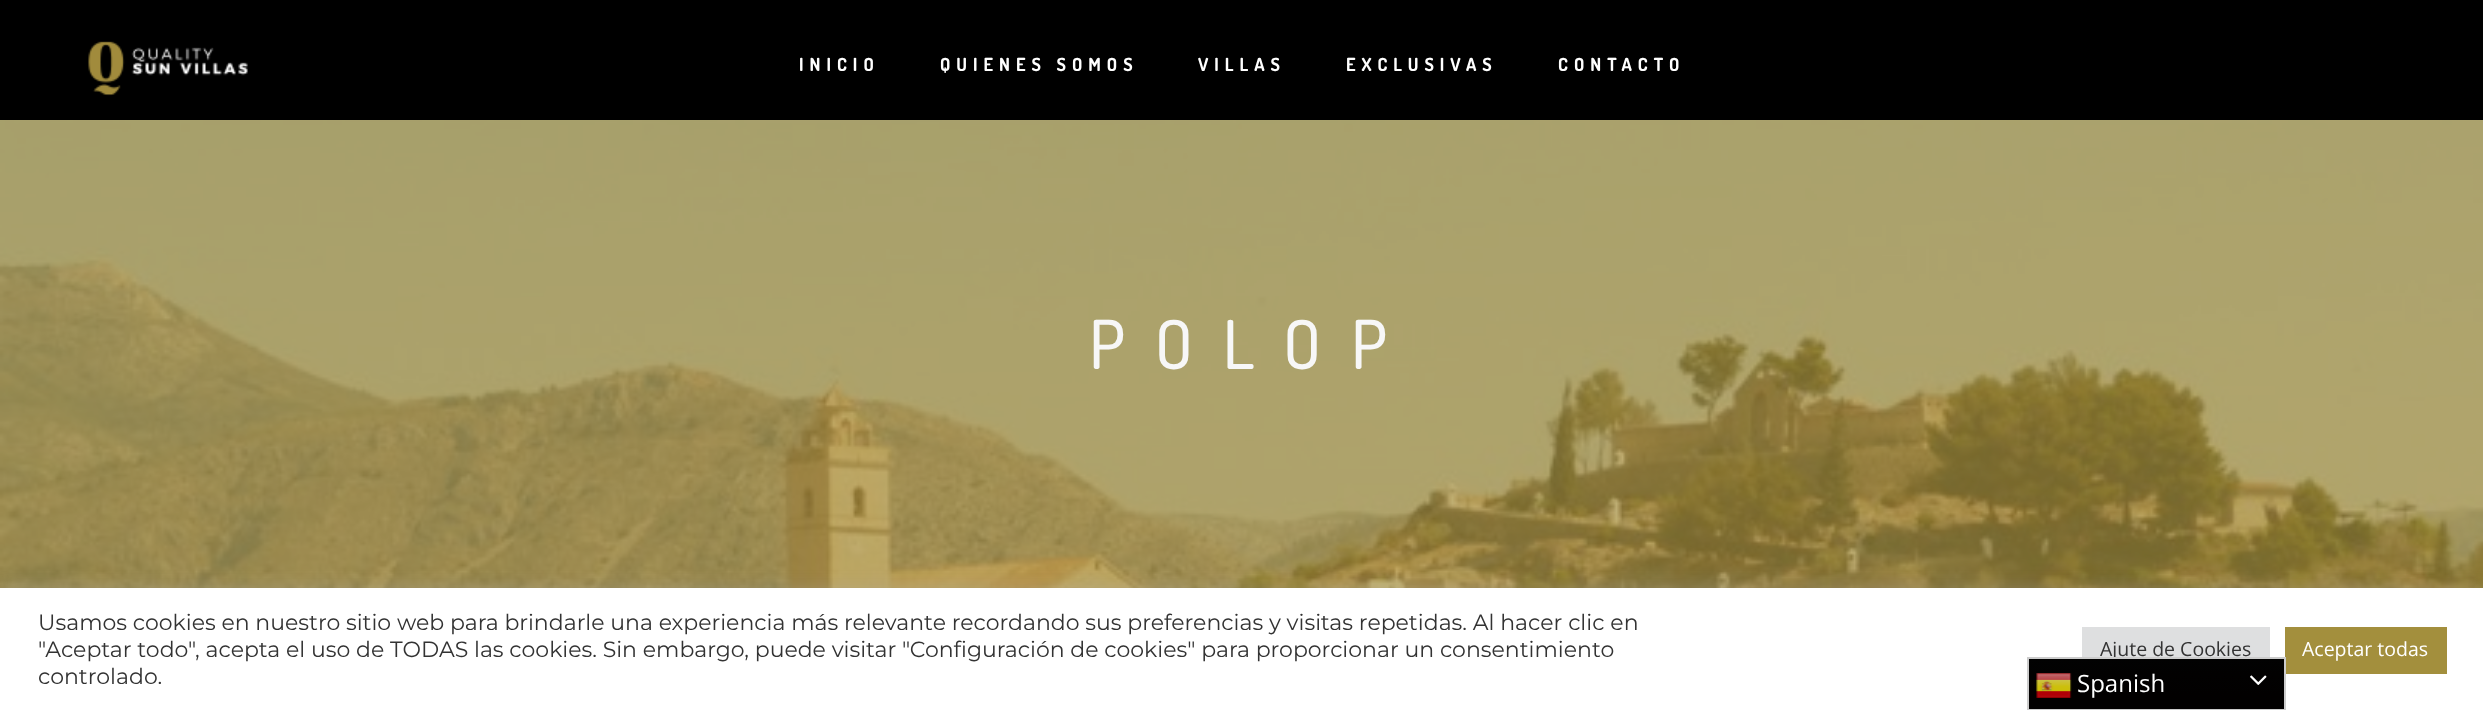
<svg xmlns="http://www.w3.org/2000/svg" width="2483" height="710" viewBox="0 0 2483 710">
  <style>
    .t1 { font: bold 18px Dosis; letter-spacing: 6px; fill: #fff; }
    .t2 { font: 500 67.5px Dosis; letter-spacing: 30px; fill: #f7f7f7; }
    .t3 { font: 22px Montserrat; fill: #333; }
    .t4 { font: 19.5px Open Sans; fill: #333; }
    .t5 { font: 19.5px Open Sans; fill: #fff; }
    .t6 { font: 24px Open Sans; fill: #fff; }
  </style>
  <defs>
    <linearGradient id="g1" gradientUnits="userSpaceOnUse" x1="2156" y1="657" x2="2156" y2="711"><stop offset="0" stop-color="#020202"/><stop offset="0.7" stop-color="#020000"/></linearGradient>
  </defs>
  <rect width="100%" height="100%" fill="#fff"/>
  <rect x="0" y="0" width="2483" height="120" fill="#000"/>
  <image x="88" y="41" width="160" height="55" href="images/1.png"/>
  <text x="799" y="71" class="t1">INICIO</text>
  <text x="940" y="71" class="t1">QUIENES SOMOS</text>
  <text x="1198" y="71" class="t1">VILLAS</text>
  <text x="1346" y="71" class="t1">EXCLUSIVAS</text>
  <text x="1558" y="71" class="t1">CONTACTO</text>
  <image x="0" y="120" width="2483" height="468" href="images/2.png"/>
  <text x="1089" y="369" class="t2">POLOP</text>
  <rect x="0" y="587" width="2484" height="123" fill="#acabab4d" filter="blur(7.5px)"/>
  <rect x="0" y="588" width="2483" height="122" fill="#fff"/>
  <text x="38" y="630" class="t3">Usamos cookies en nuestro sitio web para brindarle una experiencia más relevante recordando sus preferencias y visitas repetidas. Al hacer clic en</text>
  <text x="38" y="657" class="t3">"Aceptar todo", acepta el uso de TODAS las cookies. Sin embargo, puede visitar "Configuración de cookies" para proporcionar un consentimiento</text>
  <text x="38" y="684" class="t3">controlado.</text>
  <rect x="2082" y="627" width="188" height="30" fill="#dedfe0"/>
  <text x="2100" y="656" class="t4">Ajute de Cookies</text>
  <rect x="2285" y="627" width="162" height="47" fill="#a38f3d"/>
  <text x="2302" y="656" class="t5">Aceptar todas</text>
  <rect x="2029" y="659" width="255" height="50" fill="url(#g1)"/>
  <rect x="2028" y="658" width="257" height="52" fill="none" stroke="#ccc" stroke-width="2"/>
  <image x="2036" y="673" width="36" height="25" href="images/3.png"/>
  <text x="2077" y="692" class="t6">Spanish</text>
  <image x="2250" y="675" width="17" height="10" href="images/4.png"/>
</svg>
